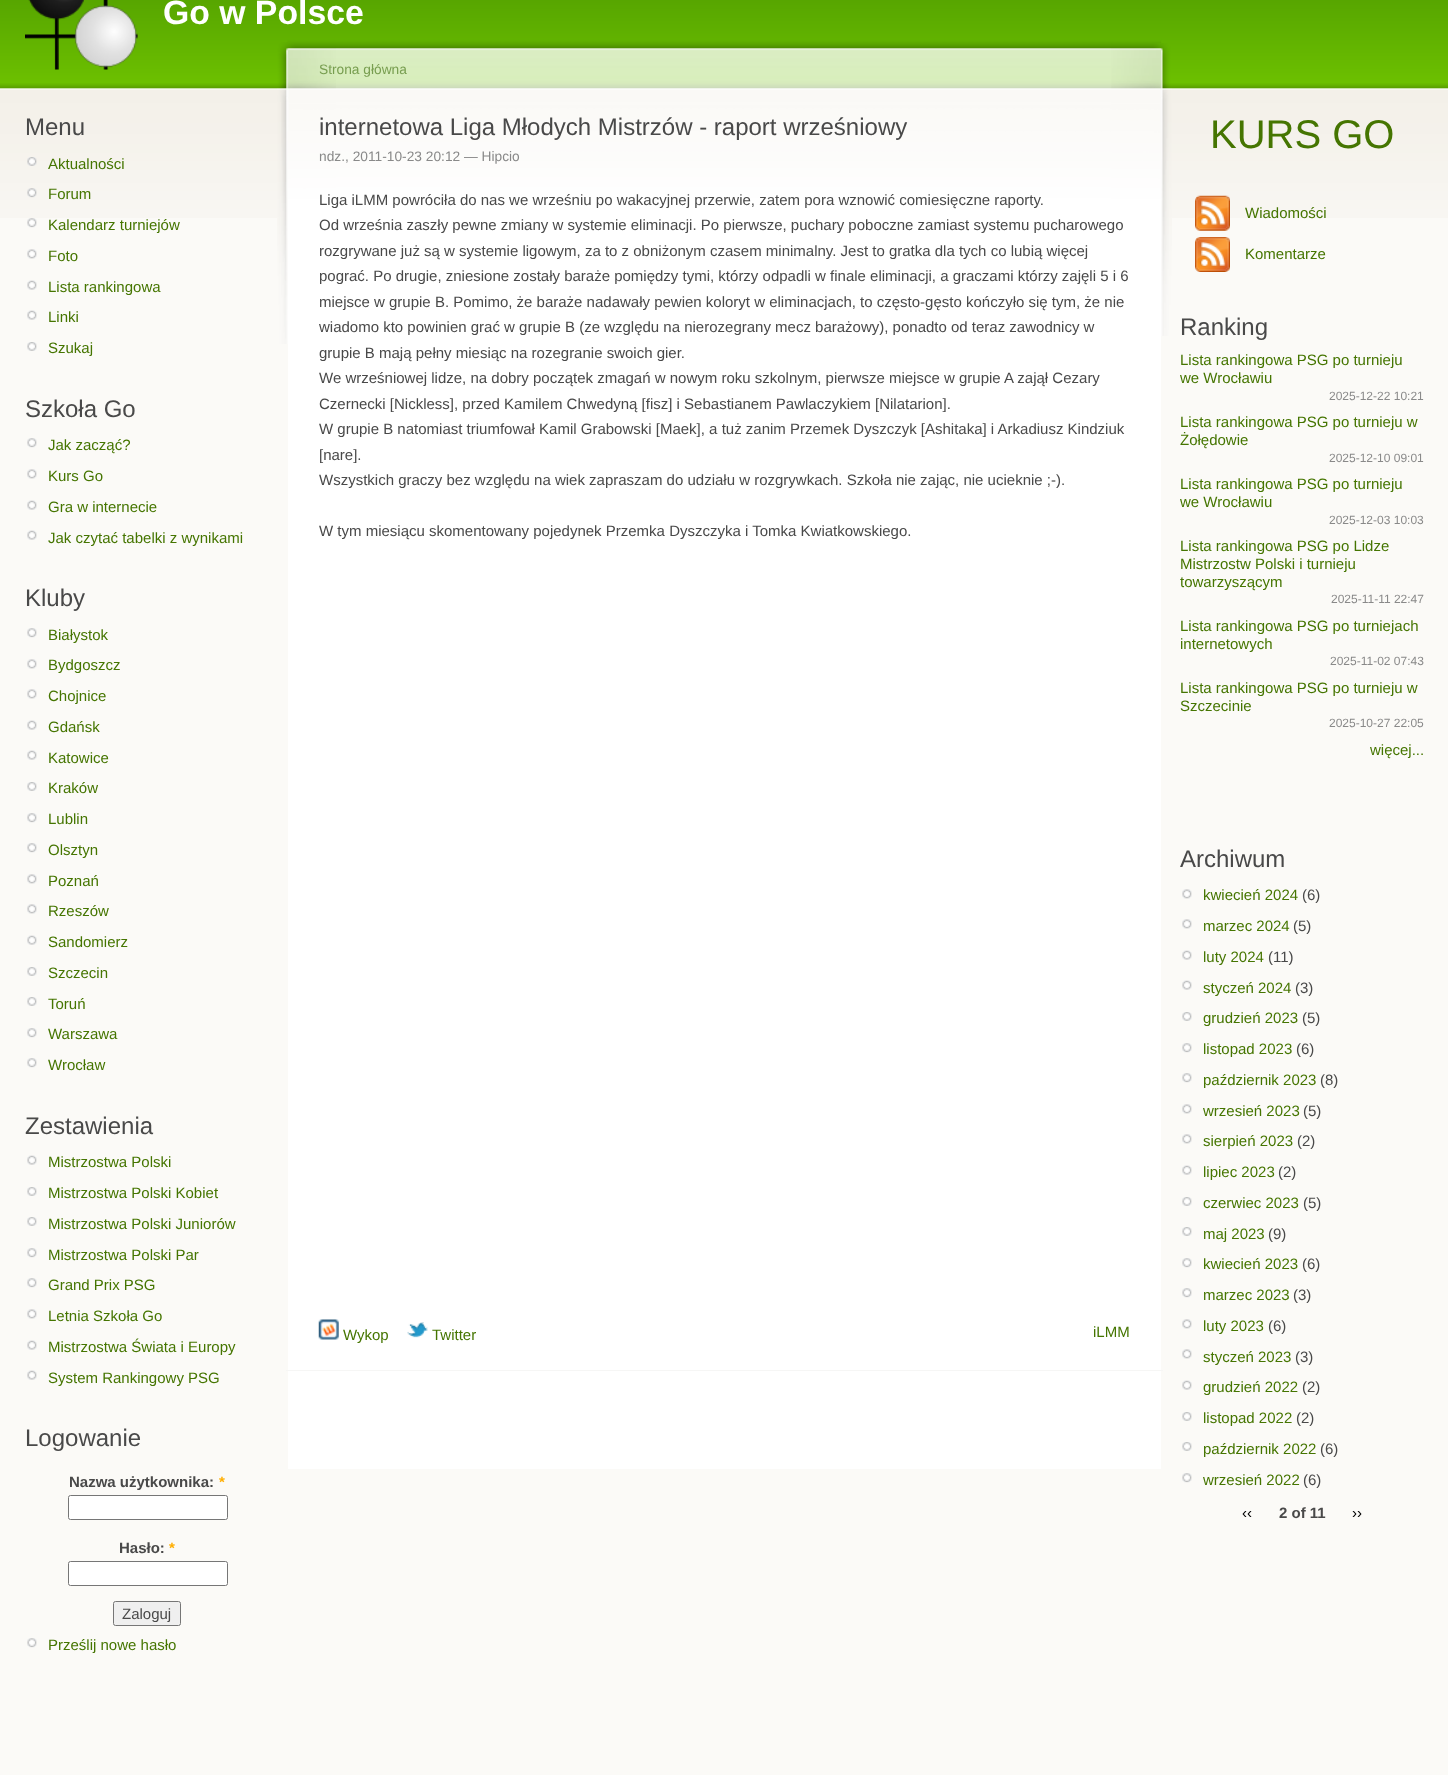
<svg xmlns="http://www.w3.org/2000/svg" width="1448" height="1775" viewBox="0 0 1448 1775">
  <style>
    .t1 { font: bold 33.75px Liberation Sans; fill: #fff; }
    .t2 { font: 24px Liberation Sans; fill: #494949; }
    .t3 { font: 15px Liberation Sans; fill: #457501; }
    .t4 { font: bold 15px Liberation Sans; fill: #494949; }
    .t5 { font: bold 15px Liberation Sans; fill: #ffae00; }
    .t6 { font: 15px Liberation Sans; fill: #494949; }
    .t7 { font: 13.75px Liberation Sans; fill: #789e50; }
    .t8 { font: 13.75px Liberation Sans; fill: #898989; }
    .t9 { font: 40px Liberation Sans; fill: #457501; }
    .t10 { font: 12px Liberation Sans; fill: #898989; }
    .t11 { font: 15px Liberation Sans; fill: #000; }
  </style>
  <rect width="100%" height="100%" fill="#fbfaf7"/>
  <image x="0" y="0" width="1448" height="218" href="images/1.png"/>
  <image x="25" y="0" width="113" height="70" href="images/2.png"/>
  <text x="163" y="24" class="t1">Go w Polsce</text>
  <text x="25" y="135" class="t2">Menu</text>
  <image x="27" y="157" width="10" height="9" href="images/3.png"/>
  <text x="48" y="169" class="t3">Aktualności</text>
  <image x="27" y="188" width="10" height="10" href="images/4.png"/>
  <text x="48" y="199" class="t3">Forum</text>
  <image x="27" y="218" width="10" height="10" href="images/5.png"/>
  <text x="48" y="230" class="t3">Kalendarz turniejów</text>
  <image x="27" y="249" width="10" height="10" href="images/6.png"/>
  <text x="48" y="261" class="t3">Foto</text>
  <image x="27" y="280" width="10" height="10" href="images/7.png"/>
  <text x="48" y="292" class="t3">Lista rankingowa</text>
  <image x="27" y="310" width="10" height="10" href="images/7.png"/>
  <text x="48" y="322" class="t3">Linki</text>
  <image x="27" y="342" width="10" height="9" href="images/8.png"/>
  <text x="48" y="353" class="t3">Szukaj</text>
  <text x="25" y="417" class="t2">Szkoła Go</text>
  <image x="27" y="438" width="10" height="10" href="images/5.png"/>
  <text x="48" y="450" class="t3">Jak zacząć?</text>
  <image x="27" y="469" width="10" height="10" href="images/6.png"/>
  <text x="48" y="481" class="t3">Kurs Go</text>
  <image x="27" y="500" width="10" height="10" href="images/7.png"/>
  <text x="48" y="512" class="t3">Gra w internecie</text>
  <image x="27" y="530" width="10" height="10" href="images/7.png"/>
  <text x="48" y="543" class="t3">Jak czytać tabelki z wynikami</text>
  <text x="25" y="606" class="t2">Kluby</text>
  <image x="27" y="628" width="10" height="10" href="images/5.png"/>
  <text x="48" y="640" class="t3">Białystok</text>
  <image x="27" y="659" width="10" height="10" href="images/6.png"/>
  <text x="48" y="670" class="t3">Bydgoszcz</text>
  <image x="27" y="689" width="10" height="10" href="images/6.png"/>
  <text x="48" y="701" class="t3">Chojnice</text>
  <image x="27" y="720" width="10" height="10" href="images/7.png"/>
  <text x="48" y="732" class="t3">Gdańsk</text>
  <image x="27" y="750" width="10" height="10" href="images/7.png"/>
  <text x="48" y="763" class="t3">Katowice</text>
  <image x="27" y="782" width="10" height="9" href="images/8.png"/>
  <text x="48" y="793" class="t3">Kraków</text>
  <image x="27" y="813" width="10" height="10" href="images/5.png"/>
  <text x="48" y="824" class="t3">Lublin</text>
  <image x="27" y="843" width="10" height="10" href="images/5.png"/>
  <text x="48" y="855" class="t3">Olsztyn</text>
  <image x="27" y="874" width="10" height="10" href="images/6.png"/>
  <text x="48" y="886" class="t3">Poznań</text>
  <image x="27" y="904" width="10" height="10" href="images/6.png"/>
  <text x="48" y="916" class="t3">Rzeszów</text>
  <image x="27" y="935" width="10" height="10" href="images/7.png"/>
  <text x="48" y="947" class="t3">Sandomierz</text>
  <image x="27" y="967" width="10" height="9" href="images/8.png"/>
  <text x="48" y="978" class="t3">Szczecin</text>
  <image x="27" y="997" width="10" height="9" href="images/8.png"/>
  <text x="48" y="1009" class="t3">Toruń</text>
  <image x="27" y="1028" width="10" height="10" href="images/5.png"/>
  <text x="48" y="1039" class="t3">Warszawa</text>
  <image x="27" y="1058" width="10" height="10" href="images/5.png"/>
  <text x="48" y="1070" class="t3">Wrocław</text>
  <text x="25" y="1134" class="t2">Zestawienia</text>
  <image x="27" y="1155" width="10" height="10" href="images/7.png"/>
  <text x="48" y="1167" class="t3">Mistrzostwa Polski</text>
  <image x="27" y="1187" width="10" height="9" href="images/8.png"/>
  <text x="48" y="1198" class="t3">Mistrzostwa Polski Kobiet</text>
  <image x="27" y="1217" width="10" height="9" href="images/8.png"/>
  <text x="48" y="1229" class="t3">Mistrzostwa Polski Juniorów</text>
  <image x="27" y="1248" width="10" height="10" href="images/5.png"/>
  <text x="48" y="1260" class="t3">Mistrzostwa Polski Par</text>
  <image x="27" y="1278" width="10" height="10" href="images/5.png"/>
  <text x="48" y="1290" class="t3">Grand Prix PSG</text>
  <image x="27" y="1309" width="10" height="10" href="images/6.png"/>
  <text x="48" y="1321" class="t3">Letnia Szkoła Go</text>
  <image x="27" y="1340" width="10" height="10" href="images/7.png"/>
  <text x="48" y="1352" class="t3">Mistrzostwa Świata i Europy</text>
  <image x="27" y="1370" width="10" height="10" href="images/7.png"/>
  <text x="48" y="1383" class="t3">System Rankingowy PSG</text>
  <text x="25" y="1446" class="t2">Logowanie</text>
  <text x="69" y="1487" class="t4">Nazwa użytkownika:</text>
  <text x="219" y="1487" class="t5">*</text>
  <rect x="68.5" y="1495.5" width="159" height="24" rx="2" fill="#fff" stroke="#767676"/>
  <text x="119" y="1553" class="t4">Hasło:</text>
  <text x="169" y="1553" class="t5">*</text>
  <rect x="68.5" y="1561.5" width="159" height="24" rx="2" fill="#fff" stroke="#767676"/>
  <rect x="113.5" y="1601.5" width="67" height="24" rx="2" fill="#efefef" stroke="#767676"/>
  <text x="122" y="1619" class="t6">Zaloguj</text>
  <image x="27" y="1638" width="10" height="10" href="images/5.png"/>
  <text x="48" y="1650" class="t3">Prześlij nowe hasło</text>
  <rect x="288" y="287" width="873" height="1182" fill="#fff"/>
  <image x="287" y="38" width="875" height="249" href="images/9.png"/>
  <image x="1111" y="43" width="61" height="293" href="images/10.png"/>
  <image x="277" y="42" width="59" height="302" href="images/11.png"/>
  <text x="319" y="74" class="t7">Strona główna</text>
  <text x="319" y="135" class="t2">internetowa Liga Młodych Mistrzów - raport wrześniowy</text>
  <rect x="286" y="1370" width="877" height="1" fill="#f6f6f5"/>
  <text x="319" y="161" class="t8">ndz., 2011-10-23 20:12 — Hipcio</text>
  <text x="319" y="205" class="t6">Liga iLMM powróciła do nas we wrześniu po wakacyjnej przerwie, zatem pora wznowić comiesięczne raporty.</text>
  <text x="319" y="230" class="t6">Od września zaszły pewne zmiany w systemie eliminacji. Po pierwsze, puchary poboczne zamiast systemu pucharowego</text>
  <text x="319" y="256" class="t6">rozgrywane już są w systemie ligowym, za to z obniżonym czasem minimalny. Jest to gratka dla tych co lubią więcej</text>
  <text x="319" y="281" class="t6">pograć. Po drugie, zniesione zostały baraże pomiędzy tymi, którzy odpadli w finale eliminacji, a graczami którzy zajęli 5 i 6</text>
  <text x="319" y="307" class="t6">miejsce w grupie B. Pomimo, że baraże nadawały pewien koloryt w eliminacjach, to często-gęsto kończyło się tym, że nie</text>
  <text x="319" y="332" class="t6">wiadomo kto powinien grać w grupie B (ze względu na nierozegrany mecz barażowy), ponadto od teraz zawodnicy w</text>
  <text x="319" y="358" class="t6">grupie B mają pełny miesiąc na rozegranie swoich gier.</text>
  <text x="319" y="383" class="t6">We wrześniowej lidze, na dobry początek zmagań w nowym roku szkolnym, pierwsze miejsce w grupie A zajął Cezary</text>
  <text x="319" y="409" class="t6">Czernecki [Nickless], przed Kamilem Chwedyną [fisz] i Sebastianem Pawlaczykiem [Nilatarion].</text>
  <text x="319" y="434" class="t6">W grupie B natomiast triumfował Kamil Grabowski [Maek], a tuż zanim Przemek Dyszczyk [Ashitaka] i Arkadiusz Kindziuk</text>
  <text x="319" y="460" class="t6">[nare].</text>
  <text x="319" y="485" class="t6">Wszystkich graczy bez względu na wiek zapraszam do udziału w rozgrywkach. Szkoła nie zając, nie ucieknie ;-).</text>
  <text x="319" y="536" class="t6">W tym miesiącu skomentowany pojedynek Przemka Dyszczyka i Tomka Kwiatkowskiego.</text>
  <image x="318" y="1319" width="21" height="21" href="images/12.png"/>
  <text x="343" y="1340" class="t3">Wykop</text>
  <image x="407" y="1322" width="21" height="16" href="images/13.png"/>
  <text x="432" y="1340" class="t3">Twitter</text>
  <text x="1093" y="1337" class="t3">iLMM</text>
  <text x="1210" y="148" class="t9">KURS GO</text>
  <image x="1195" y="195" width="35" height="36" href="images/14.png"/>
  <text x="1245" y="218" class="t3">Wiadomości</text>
  <image x="1195" y="237" width="35" height="35" href="images/15.png"/>
  <text x="1245" y="259" class="t3">Komentarze</text>
  <text x="1180" y="335" class="t2">Ranking</text>
  <text x="1180" y="365" class="t3">Lista rankingowa PSG po turnieju</text>
  <text x="1180" y="383" class="t3">we Wrocławiu</text>
  <text x="1329" y="400" class="t10">2025-12-22 10:21</text>
  <text x="1180" y="427" class="t3">Lista rankingowa PSG po turnieju w</text>
  <text x="1180" y="445" class="t3">Żołędowie</text>
  <text x="1329" y="462" class="t10">2025-12-10 09:01</text>
  <text x="1180" y="489" class="t3">Lista rankingowa PSG po turnieju</text>
  <text x="1180" y="507" class="t3">we Wrocławiu</text>
  <text x="1329" y="524" class="t10">2025-12-03 10:03</text>
  <text x="1180" y="551" class="t3">Lista rankingowa PSG po Lidze</text>
  <text x="1180" y="569" class="t3">Mistrzostw Polski i turnieju</text>
  <text x="1180" y="587" class="t3">towarzyszącym</text>
  <text x="1331" y="603" class="t10">2025-11-11 22:47</text>
  <text x="1180" y="631" class="t3">Lista rankingowa PSG po turniejach</text>
  <text x="1180" y="649" class="t3">internetowych</text>
  <text x="1330" y="665" class="t10">2025-11-02 07:43</text>
  <text x="1180" y="693" class="t3">Lista rankingowa PSG po turnieju w</text>
  <text x="1180" y="711" class="t3">Szczecinie</text>
  <text x="1329" y="727" class="t10">2025-10-27 22:05</text>
  <text x="1370" y="755" class="t3">więcej...</text>
  <text x="1180" y="867" class="t2">Archiwum</text>
  <image x="1182" y="889" width="10" height="10" href="images/6.png"/>
  <text x="1203" y="900" class="t3">kwiecień 2024</text>
  <text x="1302" y="900" class="t6">(6)</text>
  <image x="1182" y="919" width="10" height="10" href="images/6.png"/>
  <text x="1203" y="931" class="t3">marzec 2024</text>
  <text x="1293" y="931" class="t6">(5)</text>
  <image x="1182" y="950" width="10" height="10" href="images/7.png"/>
  <text x="1203" y="962" class="t3">luty 2024</text>
  <text x="1268" y="962" class="t6">(11)</text>
  <image x="1182" y="980" width="10" height="10" href="images/7.png"/>
  <text x="1203" y="993" class="t3">styczeń 2024</text>
  <text x="1295" y="993" class="t6">(3)</text>
  <image x="1182" y="1012" width="10" height="9" href="images/8.png"/>
  <text x="1203" y="1023" class="t3">grudzień 2023</text>
  <text x="1302" y="1023" class="t6">(5)</text>
  <image x="1182" y="1043" width="10" height="10" href="images/5.png"/>
  <text x="1203" y="1054" class="t3">listopad 2023</text>
  <text x="1296" y="1054" class="t6">(6)</text>
  <image x="1182" y="1073" width="10" height="10" href="images/5.png"/>
  <text x="1203" y="1085" class="t3">październik 2023</text>
  <text x="1320" y="1085" class="t6">(8)</text>
  <image x="1182" y="1104" width="10" height="10" href="images/6.png"/>
  <text x="1203" y="1116" class="t3">wrzesień 2023</text>
  <text x="1303" y="1116" class="t6">(5)</text>
  <image x="1182" y="1134" width="10" height="10" href="images/6.png"/>
  <text x="1203" y="1146" class="t3">sierpień 2023</text>
  <text x="1297" y="1146" class="t6">(2)</text>
  <image x="1182" y="1165" width="10" height="10" href="images/7.png"/>
  <text x="1203" y="1177" class="t3">lipiec 2023</text>
  <text x="1278" y="1177" class="t6">(2)</text>
  <image x="1182" y="1197" width="10" height="9" href="images/8.png"/>
  <text x="1203" y="1208" class="t3">czerwiec 2023</text>
  <text x="1303" y="1208" class="t6">(5)</text>
  <image x="1182" y="1227" width="10" height="9" href="images/8.png"/>
  <text x="1203" y="1239" class="t3">maj 2023</text>
  <text x="1268" y="1239" class="t6">(9)</text>
  <image x="1182" y="1258" width="10" height="10" href="images/5.png"/>
  <text x="1203" y="1269" class="t3">kwiecień 2023</text>
  <text x="1302" y="1269" class="t6">(6)</text>
  <image x="1182" y="1288" width="10" height="10" href="images/5.png"/>
  <text x="1203" y="1300" class="t3">marzec 2023</text>
  <text x="1293" y="1300" class="t6">(3)</text>
  <image x="1182" y="1319" width="10" height="10" href="images/6.png"/>
  <text x="1203" y="1331" class="t3">luty 2023</text>
  <text x="1268" y="1331" class="t6">(6)</text>
  <image x="1182" y="1349" width="10" height="10" href="images/6.png"/>
  <text x="1203" y="1362" class="t3">styczeń 2023</text>
  <text x="1295" y="1362" class="t6">(3)</text>
  <image x="1182" y="1380" width="10" height="10" href="images/7.png"/>
  <text x="1203" y="1392" class="t3">grudzień 2022</text>
  <text x="1302" y="1392" class="t6">(2)</text>
  <image x="1182" y="1412" width="10" height="9" href="images/8.png"/>
  <text x="1203" y="1423" class="t3">listopad 2022</text>
  <text x="1296" y="1423" class="t6">(2)</text>
  <image x="1182" y="1442" width="10" height="9" href="images/8.png"/>
  <text x="1203" y="1454" class="t3">październik 2022</text>
  <text x="1320" y="1454" class="t6">(6)</text>
  <image x="1182" y="1473" width="10" height="10" href="images/5.png"/>
  <text x="1203" y="1485" class="t3">wrzesień 2022</text>
  <text x="1303" y="1485" class="t6">(6)</text>
  <text x="1242" y="1518" class="t11">‹‹</text>
  <text x="1279" y="1518" class="t4">2 of 11</text>
  <text x="1352" y="1518" class="t11">››</text>
</svg>
